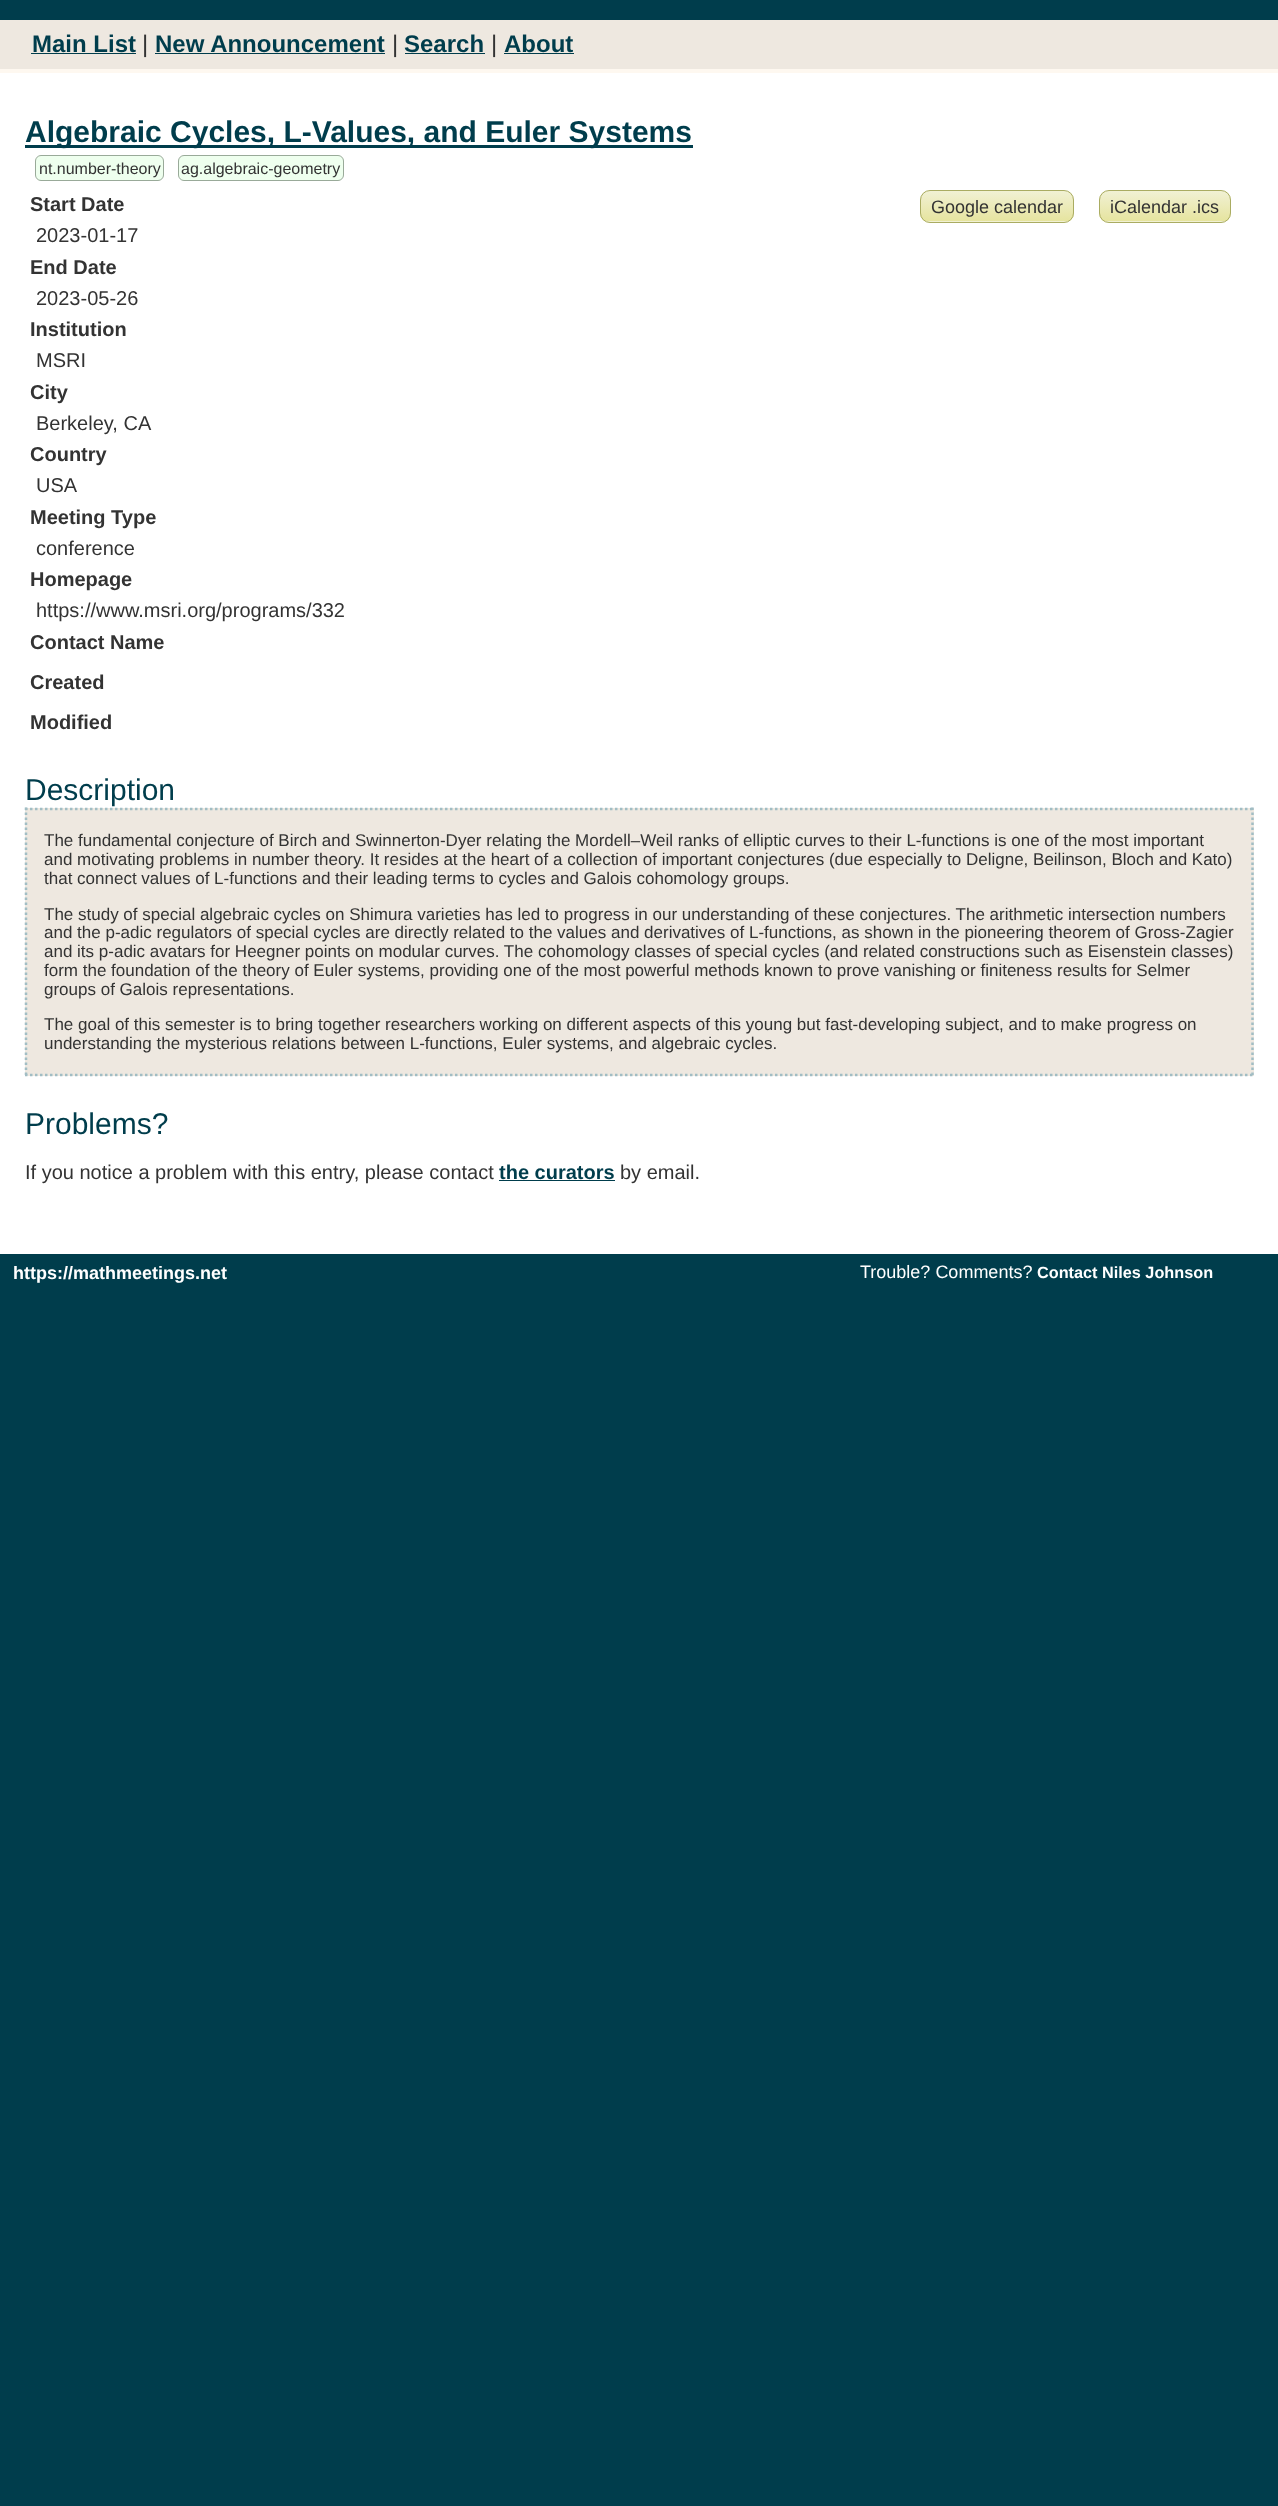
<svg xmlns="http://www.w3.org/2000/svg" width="1278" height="2506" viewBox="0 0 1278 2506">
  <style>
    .t1 { font: bold 24px Liberation Sans; fill: #003d4c; }
    .t2 { font: 24px Liberation Sans; fill: #333; }
    .t3 { font: bold 30px Liberation Sans; fill: #003d4c; }
    .t4 { font: 16px Liberation Sans; fill: #333; }
    .t5 { font: bold 20px Liberation Sans; fill: #333; }
    .t6 { font: 20px Liberation Sans; fill: #333; }
    .t7 { font: 18px Liberation Sans; fill: #333; }
    .t8 { font: 30px Liberation Sans; fill: #003d4c; }
    .t9 { font: 17px Liberation Sans; fill: #333; }
    .t10 { font: bold 20px Liberation Sans; fill: #003d4c; }
    .t11 { font: bold 18px Liberation Sans; fill: #fff; }
    .t12 { font: 18px Liberation Sans; fill: #fff; }
    .t13 { font: bold 16.25px Liberation Sans; fill: #fff; }
  </style>
  <defs>
    <clipPath id="clip1"><rect x="920" y="190" width="154" height="33" rx="10"/></clipPath>
    <linearGradient id="g1" gradientUnits="userSpaceOnUse" x1="921" y1="191" x2="921" y2="221"><stop offset="0" stop-color="#f1f1d4"/><stop offset="1" stop-color="#e6e49f"/></linearGradient>
    <linearGradient id="g2" gradientUnits="userSpaceOnUse" x1="921" y1="221" x2="921" y2="251"><stop offset="0" stop-color="#f1f1d4"/><stop offset="1" stop-color="#e6e49f"/></linearGradient>
    <clipPath id="clip2"><rect x="1099" y="190" width="132" height="33" rx="10"/></clipPath>
    <linearGradient id="g3" gradientUnits="userSpaceOnUse" x1="1100" y1="191" x2="1100" y2="221"><stop offset="0" stop-color="#f1f1d4"/><stop offset="1" stop-color="#e6e49f"/></linearGradient>
    <linearGradient id="g4" gradientUnits="userSpaceOnUse" x1="1100" y1="221" x2="1100" y2="251"><stop offset="0" stop-color="#f1f1d4"/><stop offset="1" stop-color="#e6e49f"/></linearGradient>
  </defs>
  <rect width="100%" height="100%" fill="#003d4c"/>
  <rect x="0" y="20" width="1278" height="49" fill="#eee8e0"/>
  <rect x="0" y="69" width="1278" height="4" fill="#fef8f0"/>
  <text x="32" y="52" class="t1">Main List</text>
  <rect x="31" y="53" width="105" height="1" fill="#003d4c"/>
  <text x="142" y="52" class="t2">|</text>
  <text x="155" y="52" class="t1">New Announcement</text>
  <rect x="155" y="53" width="230" height="1" fill="#003d4c"/>
  <text x="392" y="52" class="t2">|</text>
  <text x="404" y="52" class="t1">Search</text>
  <rect x="405" y="53" width="80" height="1" fill="#003d4c"/>
  <text x="491" y="52" class="t2">|</text>
  <text x="504" y="52" class="t1">About</text>
  <rect x="504" y="53" width="70" height="1" fill="#003d4c"/>
  <rect x="0" y="73" width="1278" height="1181" fill="#fff"/>
  <rect x="25" y="145" width="668" height="3" fill="#003d4c"/>
  <text x="25" y="142" class="t3">Algebraic Cycles, L-Values, and Euler Systems</text>
  <rect x="35.5" y="155.5" width="128" height="25" rx="5.5" fill="#efe" stroke="#9a9"/>
  <text x="39" y="174" class="t4">nt.number-theory</text>
  <rect x="178.5" y="155.5" width="165" height="25" rx="5.5" fill="#efe" stroke="#9a9"/>
  <text x="181" y="174" class="t4">ag.algebraic-geometry</text>
  <text x="30" y="211" class="t5">Start Date</text>
  <text x="36" y="242" class="t6">2023-01-17</text>
  <text x="30" y="274" class="t5">End Date</text>
  <text x="36" y="305" class="t6">2023-05-26</text>
  <text x="30" y="336" class="t5">Institution</text>
  <text x="36" y="367" class="t6">MSRI</text>
  <text x="30" y="399" class="t5">City</text>
  <text x="36" y="430" class="t6">Berkeley, CA</text>
  <text x="30" y="461" class="t5">Country</text>
  <text x="36" y="492" class="t6">USA</text>
  <text x="30" y="524" class="t5">Meeting Type</text>
  <text x="36" y="555" class="t6">conference</text>
  <text x="30" y="586" class="t5">Homepage</text>
  <text x="36" y="617" class="t6">https://www.msri.org/programs/332</text>
  <text x="30" y="649" class="t5">Contact Name</text>
  <text x="30" y="689" class="t5">Created</text>
  <text x="30" y="729" class="t5">Modified</text>
  <g clip-path="url(#clip1)">
    <rect x="920" y="191" width="154" height="30" fill="url(#g1)"/>
    <rect x="920" y="221" width="154" height="2" fill="url(#g2)"/>
  </g>
  <rect x="920.5" y="190.5" width="153" height="32" rx="9.5" fill="none" stroke="#aaac62"/>
  <text x="931" y="213" class="t7">Google calendar</text>
  <g clip-path="url(#clip2)">
    <rect x="1099" y="191" width="132" height="30" fill="url(#g3)"/>
    <rect x="1099" y="221" width="132" height="2" fill="url(#g4)"/>
  </g>
  <rect x="1099.5" y="190.5" width="131" height="32" rx="9.5" fill="none" stroke="#aaac62"/>
  <text x="1110" y="213" class="t7">iCalendar .ics</text>
  <text x="25" y="800" class="t8">Description</text>
  <rect x="25" y="808" width="1229" height="268" fill="#eee8e0"/>
  <path d="M25 809H1254" fill="none" stroke="#a1bdc4" stroke-width="2.5" stroke-dasharray="2.5 2.5"/>
  <path d="M1252.5 807.5V1076" fill="none" stroke="#a1bdc4" stroke-width="2.5" stroke-dasharray="2.5 2.5"/>
  <path d="M25 1075H1254" fill="none" stroke="#a1bdc4" stroke-width="2.5" stroke-dasharray="2.5 2.5"/>
  <path d="M26 807.5V1076" fill="none" stroke="#a1bdc4" stroke-width="2.5" stroke-dasharray="2.5 2.5"/>
  <text x="44" y="846" class="t9">The fundamental conjecture of Birch and Swinnerton-Dyer relating the Mordell–Weil ranks of elliptic curves to their L-functions is one of the most important</text>
  <text x="44" y="865" class="t9">and motivating problems in number theory. It resides at the heart of a collection of important conjectures (due especially to Deligne, Beilinson, Bloch and Kato)</text>
  <text x="44" y="884" class="t9">that connect values of L-functions and their leading terms to cycles and Galois cohomology groups.</text>
  <text x="44" y="920" class="t9">The study of special algebraic cycles on Shimura varieties has led to progress in our understanding of these conjectures. The arithmetic intersection numbers</text>
  <text x="44" y="938" class="t9">and the p-adic regulators of special cycles are directly related to the values and derivatives of L-functions, as shown in the pioneering theorem of Gross-Zagier</text>
  <text x="44" y="957" class="t9">and its p-adic avatars for Heegner points on modular curves. The cohomology classes of special cycles (and related constructions such as Eisenstein classes)</text>
  <text x="44" y="976" class="t9">form the foundation of the theory of Euler systems, providing one of the most powerful methods known to prove vanishing or finiteness results for Selmer</text>
  <text x="44" y="995" class="t9">groups of Galois representations.</text>
  <text x="44" y="1030" class="t9">The goal of this semester is to bring together researchers working on different aspects of this young but fast-developing subject, and to make progress on</text>
  <text x="44" y="1049" class="t9">understanding the mysterious relations between L-functions, Euler systems, and algebraic cycles.</text>
  <text x="25" y="1134" class="t8">Problems?</text>
  <text x="25" y="1179" class="t6">If you notice a problem with this entry, please contact</text>
  <text x="499" y="1179" class="t10">the curators</text>
  <rect x="499" y="1180" width="116" height="1" fill="#003d4c"/>
  <text x="620" y="1179" class="t6">by email.</text>
  <text x="13" y="1279" class="t11">https://mathmeetings.net</text>
  <text x="860" y="1278" class="t12">Trouble? Comments?</text>
  <text x="1037" y="1278" class="t13">Contact Niles Johnson</text>
</svg>
